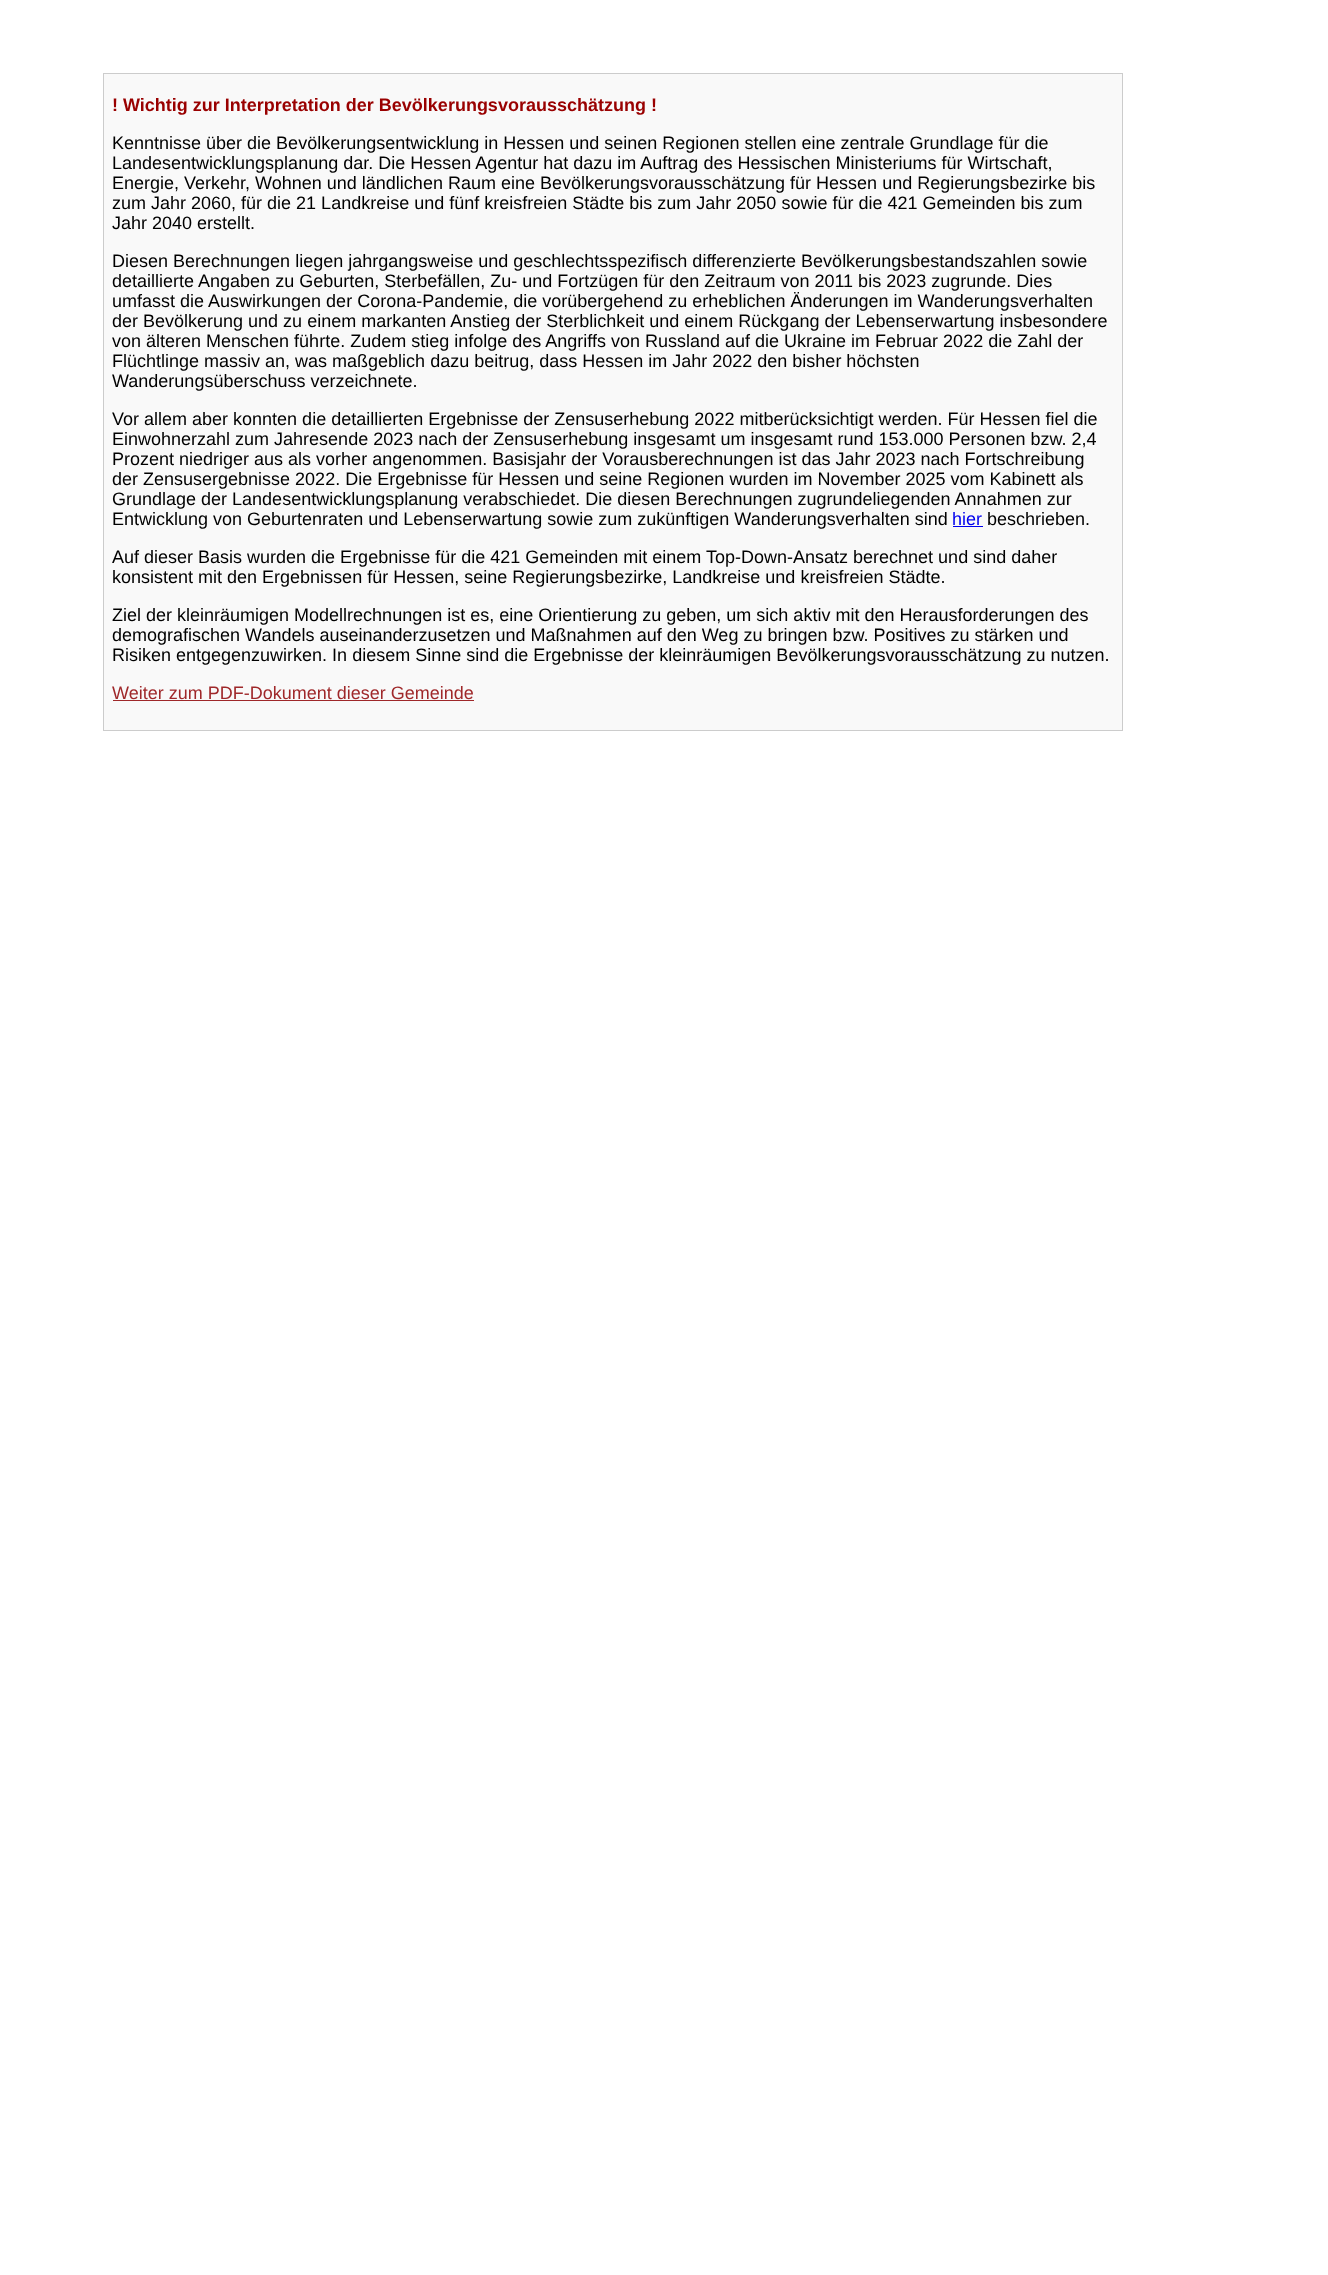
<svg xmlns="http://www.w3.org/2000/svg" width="1328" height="2275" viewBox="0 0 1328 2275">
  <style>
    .t1 { font: bold 18px Liberation Sans; fill: #900; }
    .t2 { font: 18px Liberation Sans; fill: #000; }
    .t3 { font: 18px Liberation Sans; fill: #00e; }
    .t4 { font: 18px Liberation Sans; fill: #9f282a; }
  </style>
  <rect width="100%" height="100%" fill="#fff"/>
  <rect x="103.5" y="73.5" width="1019" height="657" fill="#f9f9f9" stroke="#ccc"/>
  <text x="112" y="111" class="t1">! Wichtig zur Interpretation der Bevölkerungsvorausschätzung !</text>
  <text x="112" y="149" class="t2">Kenntnisse über die Bevölkerungsentwicklung in Hessen und seinen Regionen stellen eine zentrale Grundlage für die</text>
  <text x="112" y="169" class="t2">Landesentwicklungsplanung dar. Die Hessen Agentur hat dazu im Auftrag des Hessischen Ministeriums für Wirtschaft,</text>
  <text x="112" y="189" class="t2">Energie, Verkehr, Wohnen und ländlichen Raum eine Bevölkerungsvorausschätzung für Hessen und Regierungsbezirke bis</text>
  <text x="112" y="209" class="t2">zum Jahr 2060, für die 21 Landkreise und fünf kreisfreien Städte bis zum Jahr 2050 sowie für die 421 Gemeinden bis zum</text>
  <text x="112" y="229" class="t2">Jahr 2040 erstellt.</text>
  <text x="112" y="267" class="t2">Diesen Berechnungen liegen jahrgangsweise und geschlechtsspezifisch differenzierte Bevölkerungsbestandszahlen sowie</text>
  <text x="112" y="287" class="t2">detaillierte Angaben zu Geburten, Sterbefällen, Zu- und Fortzügen für den Zeitraum von 2011 bis 2023 zugrunde. Dies</text>
  <text x="112" y="307" class="t2">umfasst die Auswirkungen der Corona-Pandemie, die vorübergehend zu erheblichen Änderungen im Wanderungsverhalten</text>
  <text x="112" y="327" class="t2">der Bevölkerung und zu einem markanten Anstieg der Sterblichkeit und einem Rückgang der Lebenserwartung insbesondere</text>
  <text x="112" y="347" class="t2">von älteren Menschen führte. Zudem stieg infolge des Angriffs von Russland auf die Ukraine im Februar 2022 die Zahl der</text>
  <text x="112" y="367" class="t2">Flüchtlinge massiv an, was maßgeblich dazu beitrug, dass Hessen im Jahr 2022 den bisher höchsten</text>
  <text x="112" y="387" class="t2">Wanderungsüberschuss verzeichnete.</text>
  <text x="112" y="425" class="t2">Vor allem aber konnten die detaillierten Ergebnisse der Zensuserhebung 2022 mitberücksichtigt werden. Für Hessen fiel die</text>
  <text x="112" y="445" class="t2">Einwohnerzahl zum Jahresende 2023 nach der Zensuserhebung insgesamt um insgesamt rund 153.000 Personen bzw. 2,4</text>
  <text x="112" y="465" class="t2">Prozent niedriger aus als vorher angenommen. Basisjahr der Vorausberechnungen ist das Jahr 2023 nach Fortschreibung</text>
  <text x="112" y="485" class="t2">der Zensusergebnisse 2022. Die Ergebnisse für Hessen und seine Regionen wurden im November 2025 vom Kabinett als</text>
  <text x="112" y="505" class="t2">Grundlage der Landesentwicklungsplanung verabschiedet. Die diesen Berechnungen zugrundeliegenden Annahmen zur</text>
  <text x="112" y="525" class="t2">Entwicklung von Geburtenraten und Lebenserwartung sowie zum zukünftigen Wanderungsverhalten sind</text>
  <text x="952" y="525" class="t3">hier</text>
  <rect x="953" y="526" width="30" height="1" fill="#00e"/>
  <text x="987" y="525" class="t2">beschrieben.</text>
  <text x="112" y="563" class="t2">Auf dieser Basis wurden die Ergebnisse für die 421 Gemeinden mit einem Top-Down-Ansatz berechnet und sind daher</text>
  <text x="112" y="583" class="t2">konsistent mit den Ergebnissen für Hessen, seine Regierungsbezirke, Landkreise und kreisfreien Städte.</text>
  <text x="112" y="621" class="t2">Ziel der kleinräumigen Modellrechnungen ist es, eine Orientierung zu geben, um sich aktiv mit den Herausforderungen des</text>
  <text x="112" y="641" class="t2">demografischen Wandels auseinanderzusetzen und Maßnahmen auf den Weg zu bringen bzw. Positives zu stärken und</text>
  <text x="112" y="661" class="t2">Risiken entgegenzuwirken. In diesem Sinne sind die Ergebnisse der kleinräumigen Bevölkerungsvorausschätzung zu nutzen.</text>
  <text x="112" y="699" class="t4">Weiter zum PDF-Dokument dieser Gemeinde</text>
  <rect x="113" y="700" width="361" height="1" fill="#9f282a"/>
</svg>
